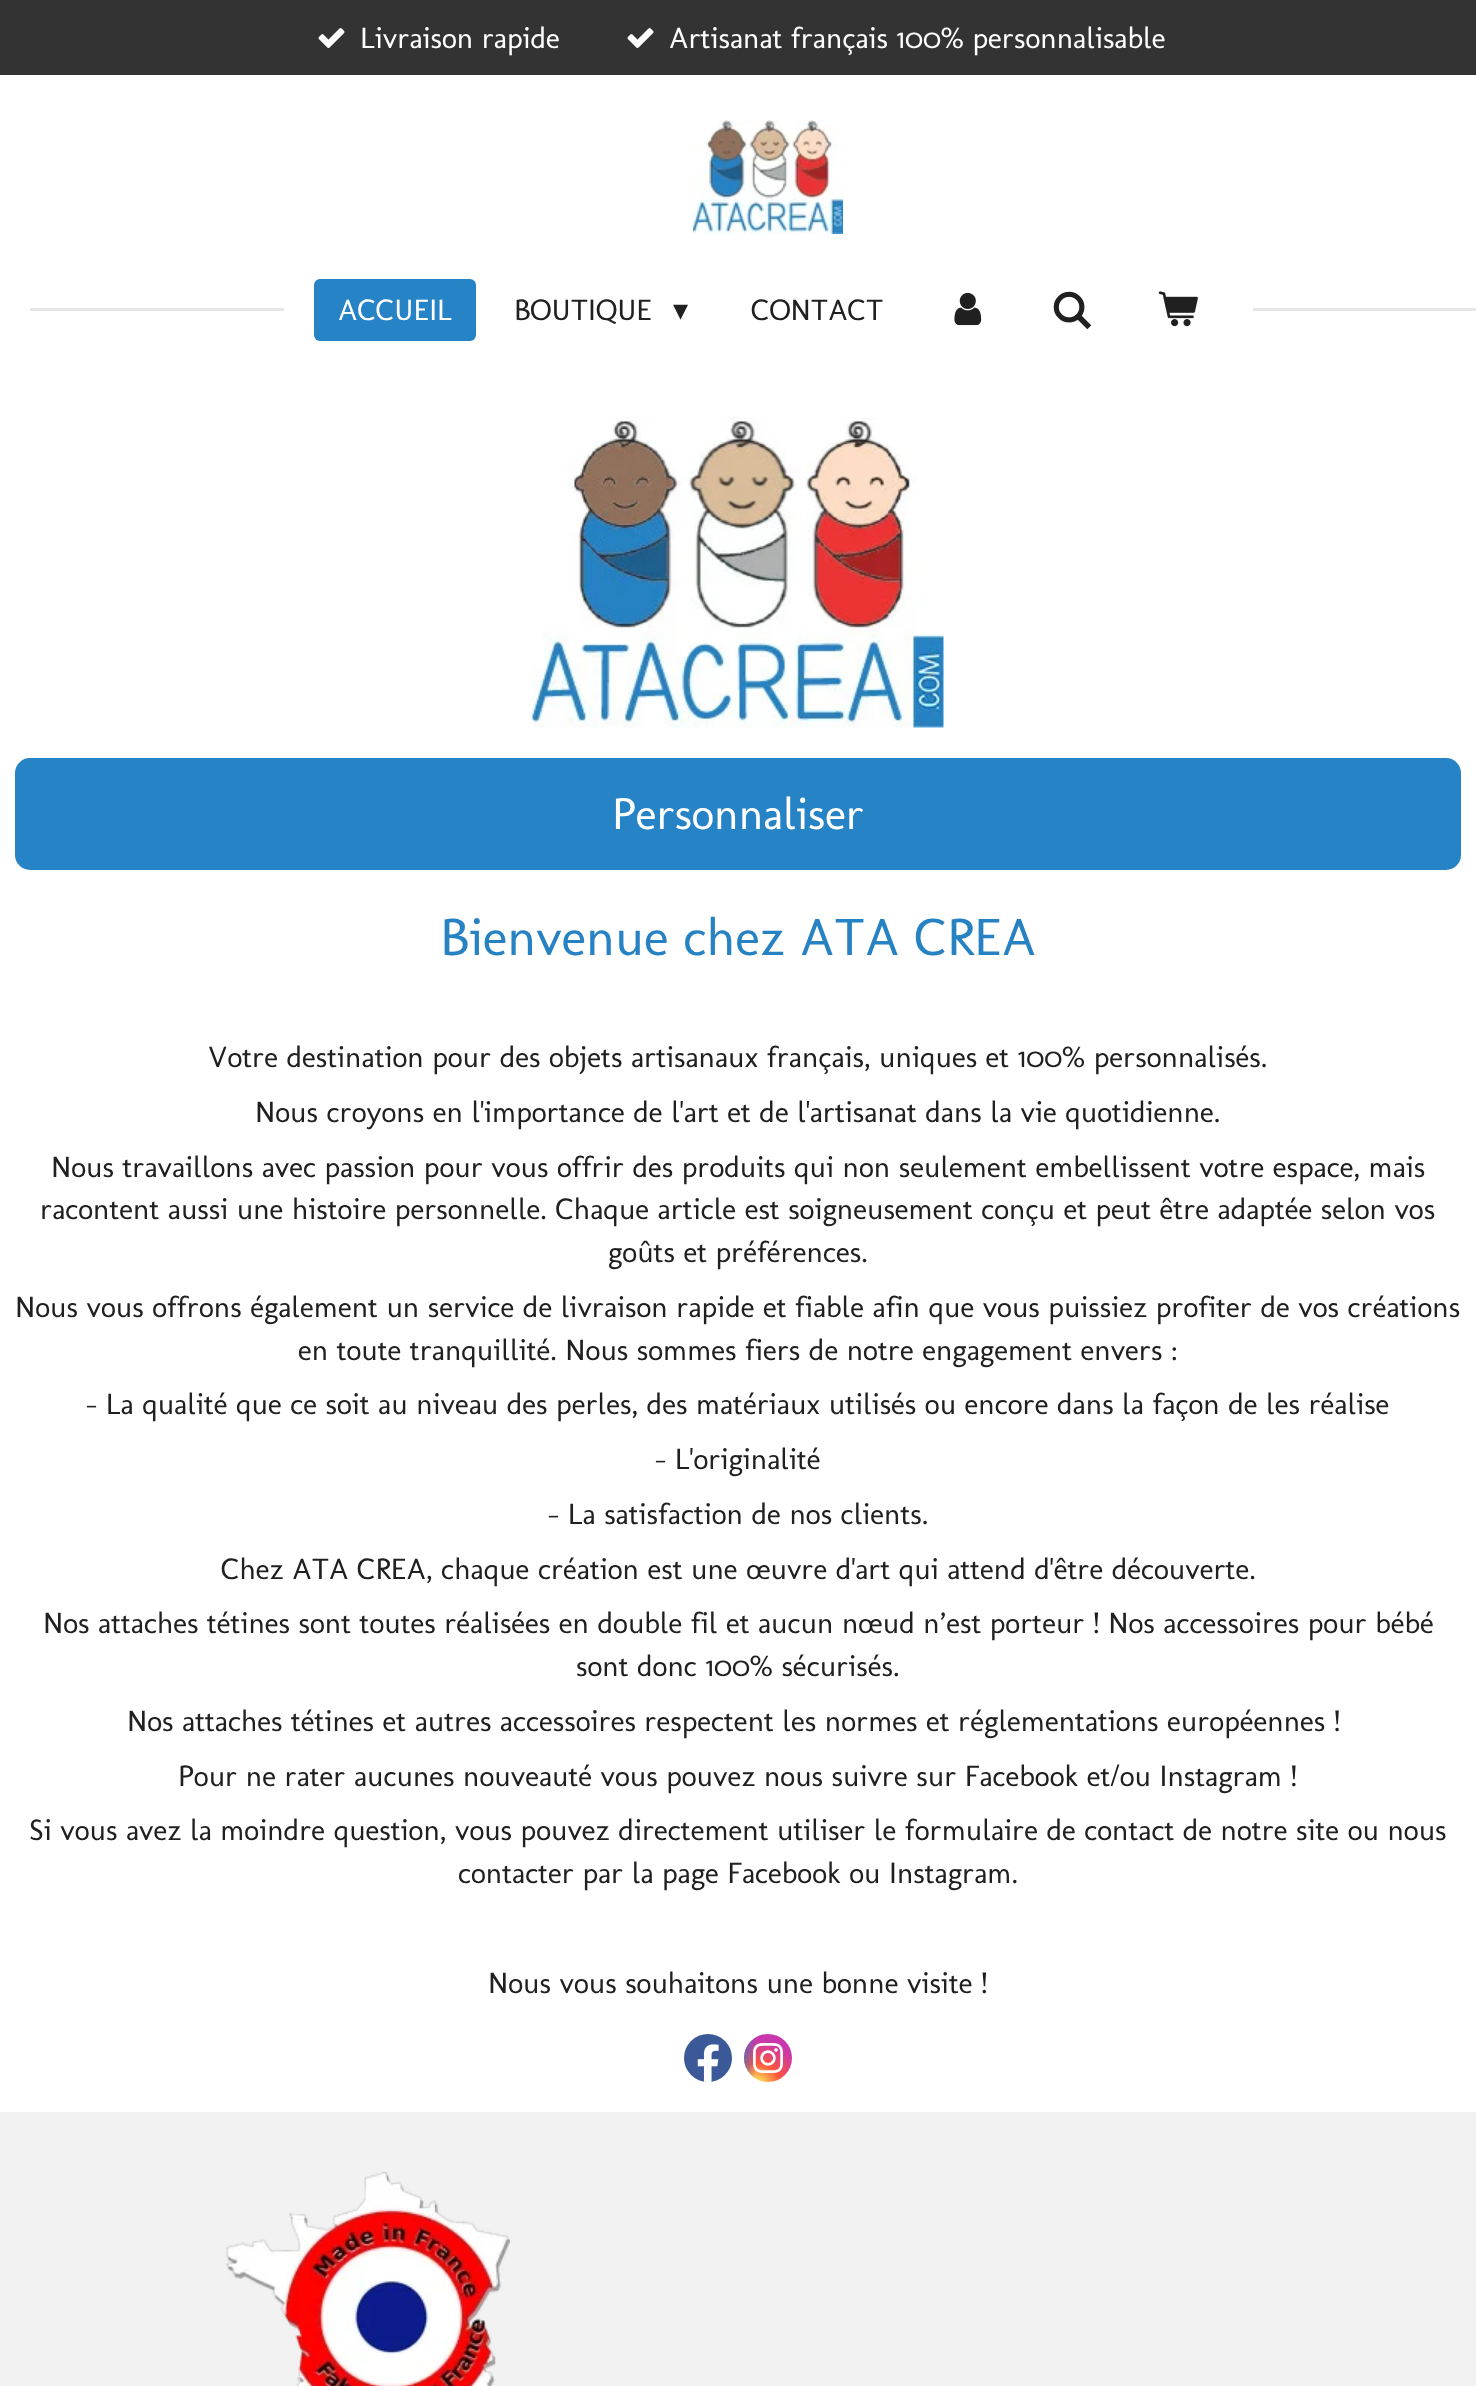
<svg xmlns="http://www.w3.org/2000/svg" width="1476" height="2386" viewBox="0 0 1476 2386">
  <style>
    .t1 { font: 30px Molengo; fill: #fff; }
    .t2 { font: 30px Molengo; fill: #202020; }
    .t3 { font: 30px DejaVu Sans; fill: #202020; }
    .t4 { font: 45px Molengo; fill: #fff; }
    .t5 { font: 53px Molengo; fill: #2682c3; }
  </style>
  <defs>
    <radialGradient id="g1" gradientUnits="userSpaceOnUse" cx="0" cy="0" r="1" gradientTransform="matrix(47 0 0 44 757 2085)"><stop offset="0" stop-color="#fd5"/><stop offset="0.1" stop-color="#fd5"/><stop offset="0.5" stop-color="#ff543e"/><stop offset="1" stop-color="#c837ab"/></radialGradient>
    <radialGradient id="g2" gradientUnits="userSpaceOnUse" cx="0" cy="0" r="1" gradientTransform="matrix(21 0 0 86 736 2037)"><stop offset="0" stop-color="#3771c8"/><stop offset="0.13" stop-color="#3771c8"/><stop offset="1" stop-color="#3771c8" stop-opacity="0"/></radialGradient>
  </defs>
  <rect width="100%" height="100%" fill="#fff"/>
  <rect x="0" y="0" width="1476" height="75" fill="#333"/>
  <image x="318" y="28" width="27" height="20" href="images/1.png"/>
  <text x="360" y="48" class="t1">Livraison rapide</text>
  <image x="627" y="28" width="27" height="20" href="images/1.png"/>
  <text x="669" y="48" class="t1">Artisanat français 100% personnalisable</text>
  <image x="693" y="120" width="150" height="114" href="images/2.png"/>
  <rect x="30" y="308" width="254" height="3" fill="#e6e6e6"/>
  <rect x="314" y="279" width="162" height="62" rx="6" fill="#2683c6"/>
  <text x="338" y="320" class="t1">ACCUEIL</text>
  <text x="514" y="320" class="t2">BOUTIQUE</text>
  <text x="673" y="320" class="t3">▾</text>
  <text x="751" y="320" class="t2">CONTACT</text>
  <image x="954" y="292" width="28" height="34" href="images/3.png"/>
  <image x="1053" y="291" width="39" height="39" href="images/4.png"/>
  <image x="1158" y="291" width="40" height="36" href="images/5.png"/>
  <rect x="1253" y="308" width="223" height="3" fill="#e6e6e6"/>
  <image x="532" y="417" width="412" height="311" href="images/6.png"/>
  <rect x="15" y="758" width="1446" height="112" rx="15" fill="#2683c6"/>
  <text x="612" y="829" class="t4">Personnaliser</text>
  <text x="440" y="955" class="t5">Bienvenue chez ATA CREA</text>
  <text x="208" y="1067" class="t2">Votre destination pour des objets artisanaux français, uniques et 100% personnalisés.</text>
  <text x="255" y="1122" class="t2">Nous croyons en l'importance de l'art et de l'artisanat dans la vie quotidienne.</text>
  <text x="51" y="1177" class="t2">Nous travaillons avec passion pour vous offrir des produits qui non seulement embellissent votre espace, mais</text>
  <text x="40" y="1219" class="t2">racontent aussi une histoire personnelle. Chaque article est soigneusement conçu et peut être adaptée selon vos</text>
  <text x="608" y="1262" class="t2">goûts et préférences.</text>
  <text x="15" y="1317" class="t2">Nous vous offrons également un service de livraison rapide et fiable afin que vous puissiez profiter de vos créations</text>
  <text x="298" y="1360" class="t2">en toute tranquillité. Nous sommes fiers de notre engagement envers :</text>
  <text x="86" y="1414" class="t2">- La qualité que ce soit au niveau des perles, des matériaux utilisés ou encore dans la façon de les réalise</text>
  <text x="655" y="1469" class="t2">- L'originalité</text>
  <text x="548" y="1524" class="t2">- La satisfaction de nos clients.</text>
  <text x="221" y="1579" class="t2">Chez ATA CREA, chaque création est une œuvre d'art qui attend d'être découverte.</text>
  <text x="43" y="1633" class="t2">Nos attaches tétines sont toutes réalisées en double fil et aucun nœud n’est porteur ! Nos accessoires pour bébé</text>
  <text x="576" y="1676" class="t2">sont donc 100% sécurisés.</text>
  <text x="127" y="1731" class="t2">Nos attaches tétines et autres accessoires respectent les normes et réglementations européennes !</text>
  <text x="178" y="1786" class="t2">Pour ne rater aucunes nouveauté vous pouvez nous suivre sur Facebook et/ou Instagram !</text>
  <text x="29" y="1840" class="t2">Si vous avez la moindre question, vous pouvez directement utiliser le formulaire de contact de notre site ou nous</text>
  <text x="458" y="1883" class="t2">contacter par la page Facebook ou Instagram.</text>
  <text x="488" y="1993" class="t2">Nous vous souhaitons une bonne visite !</text>
  <circle cx="708" cy="2058" r="24" fill="#3b5998"/>
  <image x="697" y="2044" width="22" height="38" href="images/7.png"/>
  <circle cx="768" cy="2058" r="24" fill="url(#g1)"/>
  <circle cx="768" cy="2058" r="24" fill="url(#g2)"/>
  <image x="753" y="2043" width="30" height="30" href="images/8.png"/>
  <rect x="0" y="2112" width="1476" height="274" fill="#f2f2f2"/>
  <image x="226" y="2172" width="284" height="214" href="images/9.png"/>
</svg>
